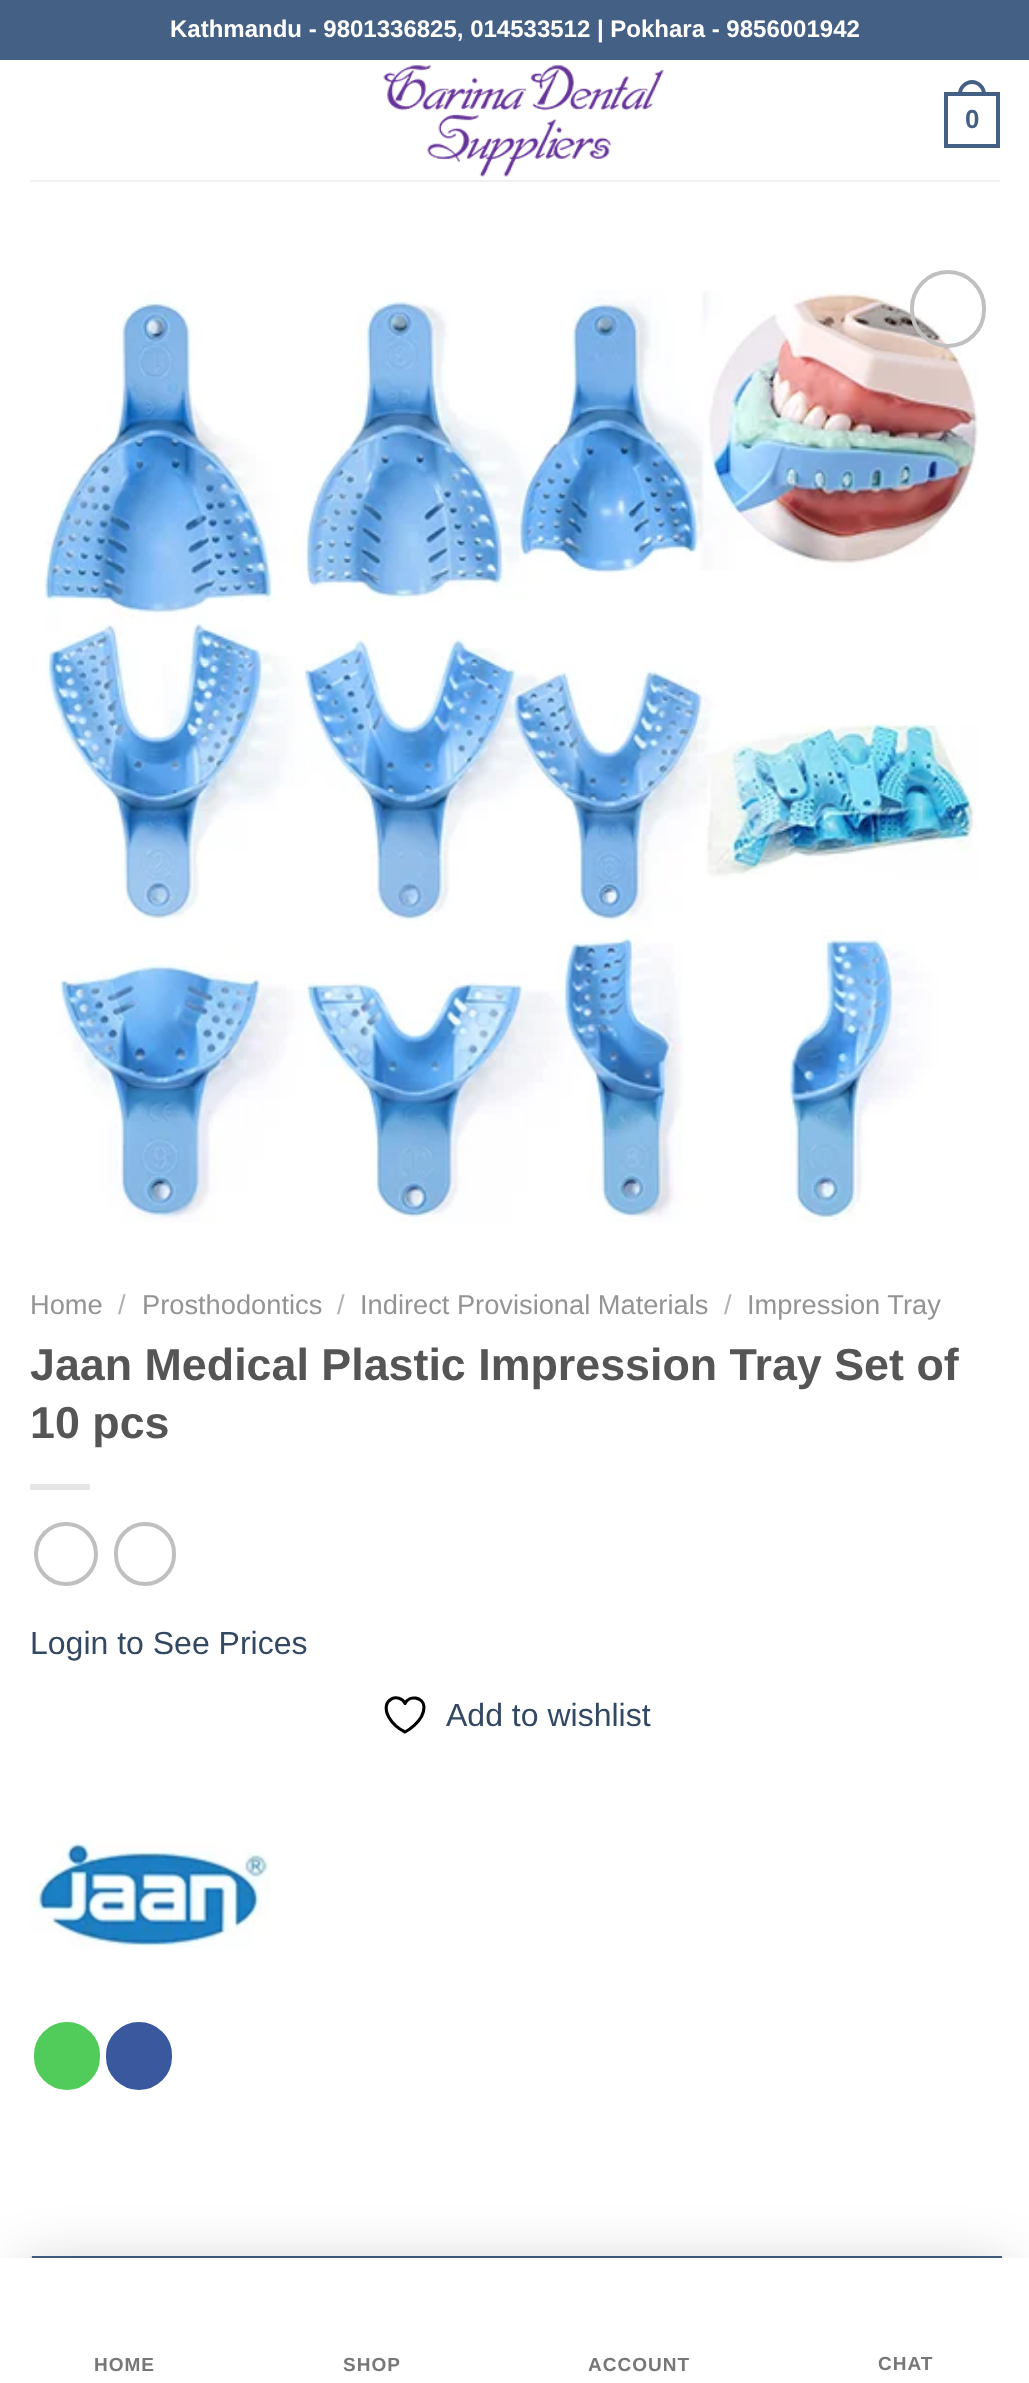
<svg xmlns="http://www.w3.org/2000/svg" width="1029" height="2383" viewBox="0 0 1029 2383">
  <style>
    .t1 { font: bold 24px Liberation Sans; fill: #fff; }
    .t2 { font: bold 26px Liberation Sans; fill: #446084; }
    .t3 { font: 27.25px Liberation Sans; fill: #949494; }
    .t4 { font: 27.25px Liberation Sans; fill: #b2b2b2; }
    .t5 { font: bold 44.8px Liberation Sans; fill: #555; }
    .t6 { font: 32px Liberation Sans; fill: #334862; }
    .t7 { font: bold 19px Liberation Sans; letter-spacing: 1px; fill: #777; }
  </style>
  <rect width="100%" height="100%" fill="#fff"/>
  <rect x="0" y="0" width="1029" height="60" fill="#446084"/>
  <text x="170" y="37" class="t1">Kathmandu - 9801336825, 014533512 | Pokhara - 9856001942</text>
  <image x="383" y="64" width="281" height="113" href="images/1.png"/>
  <rect x="946" y="94" width="52" height="52" fill="none" stroke="#446084" stroke-width="4"/>
  <path d="M972 80C979.5 80 986 86.5 986 94V96H958V94C958 86.5 964.5 80 972 80ZM972 84C977.5 84 982 88.5 982 94V96H962V94C962 88.5 966.5 84 972 84Z" fill="#446084" fill-rule="evenodd"/>
  <text x="965" y="128" class="t2">0</text>
  <rect x="30" y="180" width="970" height="2" fill="#f1f1f1"/>
  <image x="44" y="290" width="934" height="933" href="images/2.png"/>
  <rect x="912" y="272" width="72" height="74" rx="36" fill="none" stroke="#c0c0c0" stroke-width="4"/>
  <text x="30" y="1314" class="t3">Home</text>
  <text x="118" y="1314" class="t4">/</text>
  <text x="142" y="1314" class="t3">Prosthodontics</text>
  <text x="337" y="1314" class="t4">/</text>
  <text x="360" y="1314" class="t3">Indirect Provisional Materials</text>
  <text x="724" y="1314" class="t4">/</text>
  <text x="747" y="1314" class="t3">Impression Tray</text>
  <text x="30" y="1380" class="t5">Jaan Medical Plastic Impression Tray Set of</text>
  <text x="30" y="1438" class="t5">10 pcs</text>
  <rect x="30" y="1484" width="60" height="6" fill="#e6e6e6"/>
  <circle cx="66" cy="1554" r="30" fill="none" stroke="#c0c0c0" stroke-width="4"/>
  <rect x="116" y="1524" width="58" height="60" rx="29" fill="none" stroke="#c0c0c0" stroke-width="4"/>
  <text x="30" y="1654" class="t6">Login to See Prices</text>
  <path d="M424 1707C424 1697 409 1694.5 405 1703.5C400 1692 378.5 1698.5 389 1717.5C392.5 1723.5 399 1729 405 1732C405 1732 424 1722 424 1707Z" fill="none" stroke="#000" stroke-width="3.1" stroke-linecap="round" stroke-linejoin="round"/>
  <text x="446" y="1726" class="t6">Add to wishlist</text>
  <image x="30" y="1839" width="240" height="110" href="images/3.png"/>
  <rect x="35" y="2023" width="64" height="66" rx="32" fill="#51cb5a" stroke="#51cb5a" stroke-width="2"/>
  <rect x="107" y="2023" width="64" height="66" rx="32" fill="#3a589d" stroke="#3a589d" stroke-width="2"/>
  <rect x="30" y="2256" width="2" height="2" fill="#ececec"/>
  <rect x="32" y="2256" width="970" height="2" fill="#446084"/>
  <rect x="24" y="2266" width="982" height="78" fill="#00000033" filter="blur(29px)"/>
  <rect x="0" y="2258" width="1029" height="125" fill="#fff"/>
  <text x="94" y="2371" class="t7">HOME</text>
  <text x="343" y="2371" class="t7">SHOP</text>
  <text x="588" y="2371" class="t7">ACCOUNT</text>
  <text x="878" y="2370" class="t7">CHAT</text>
</svg>
